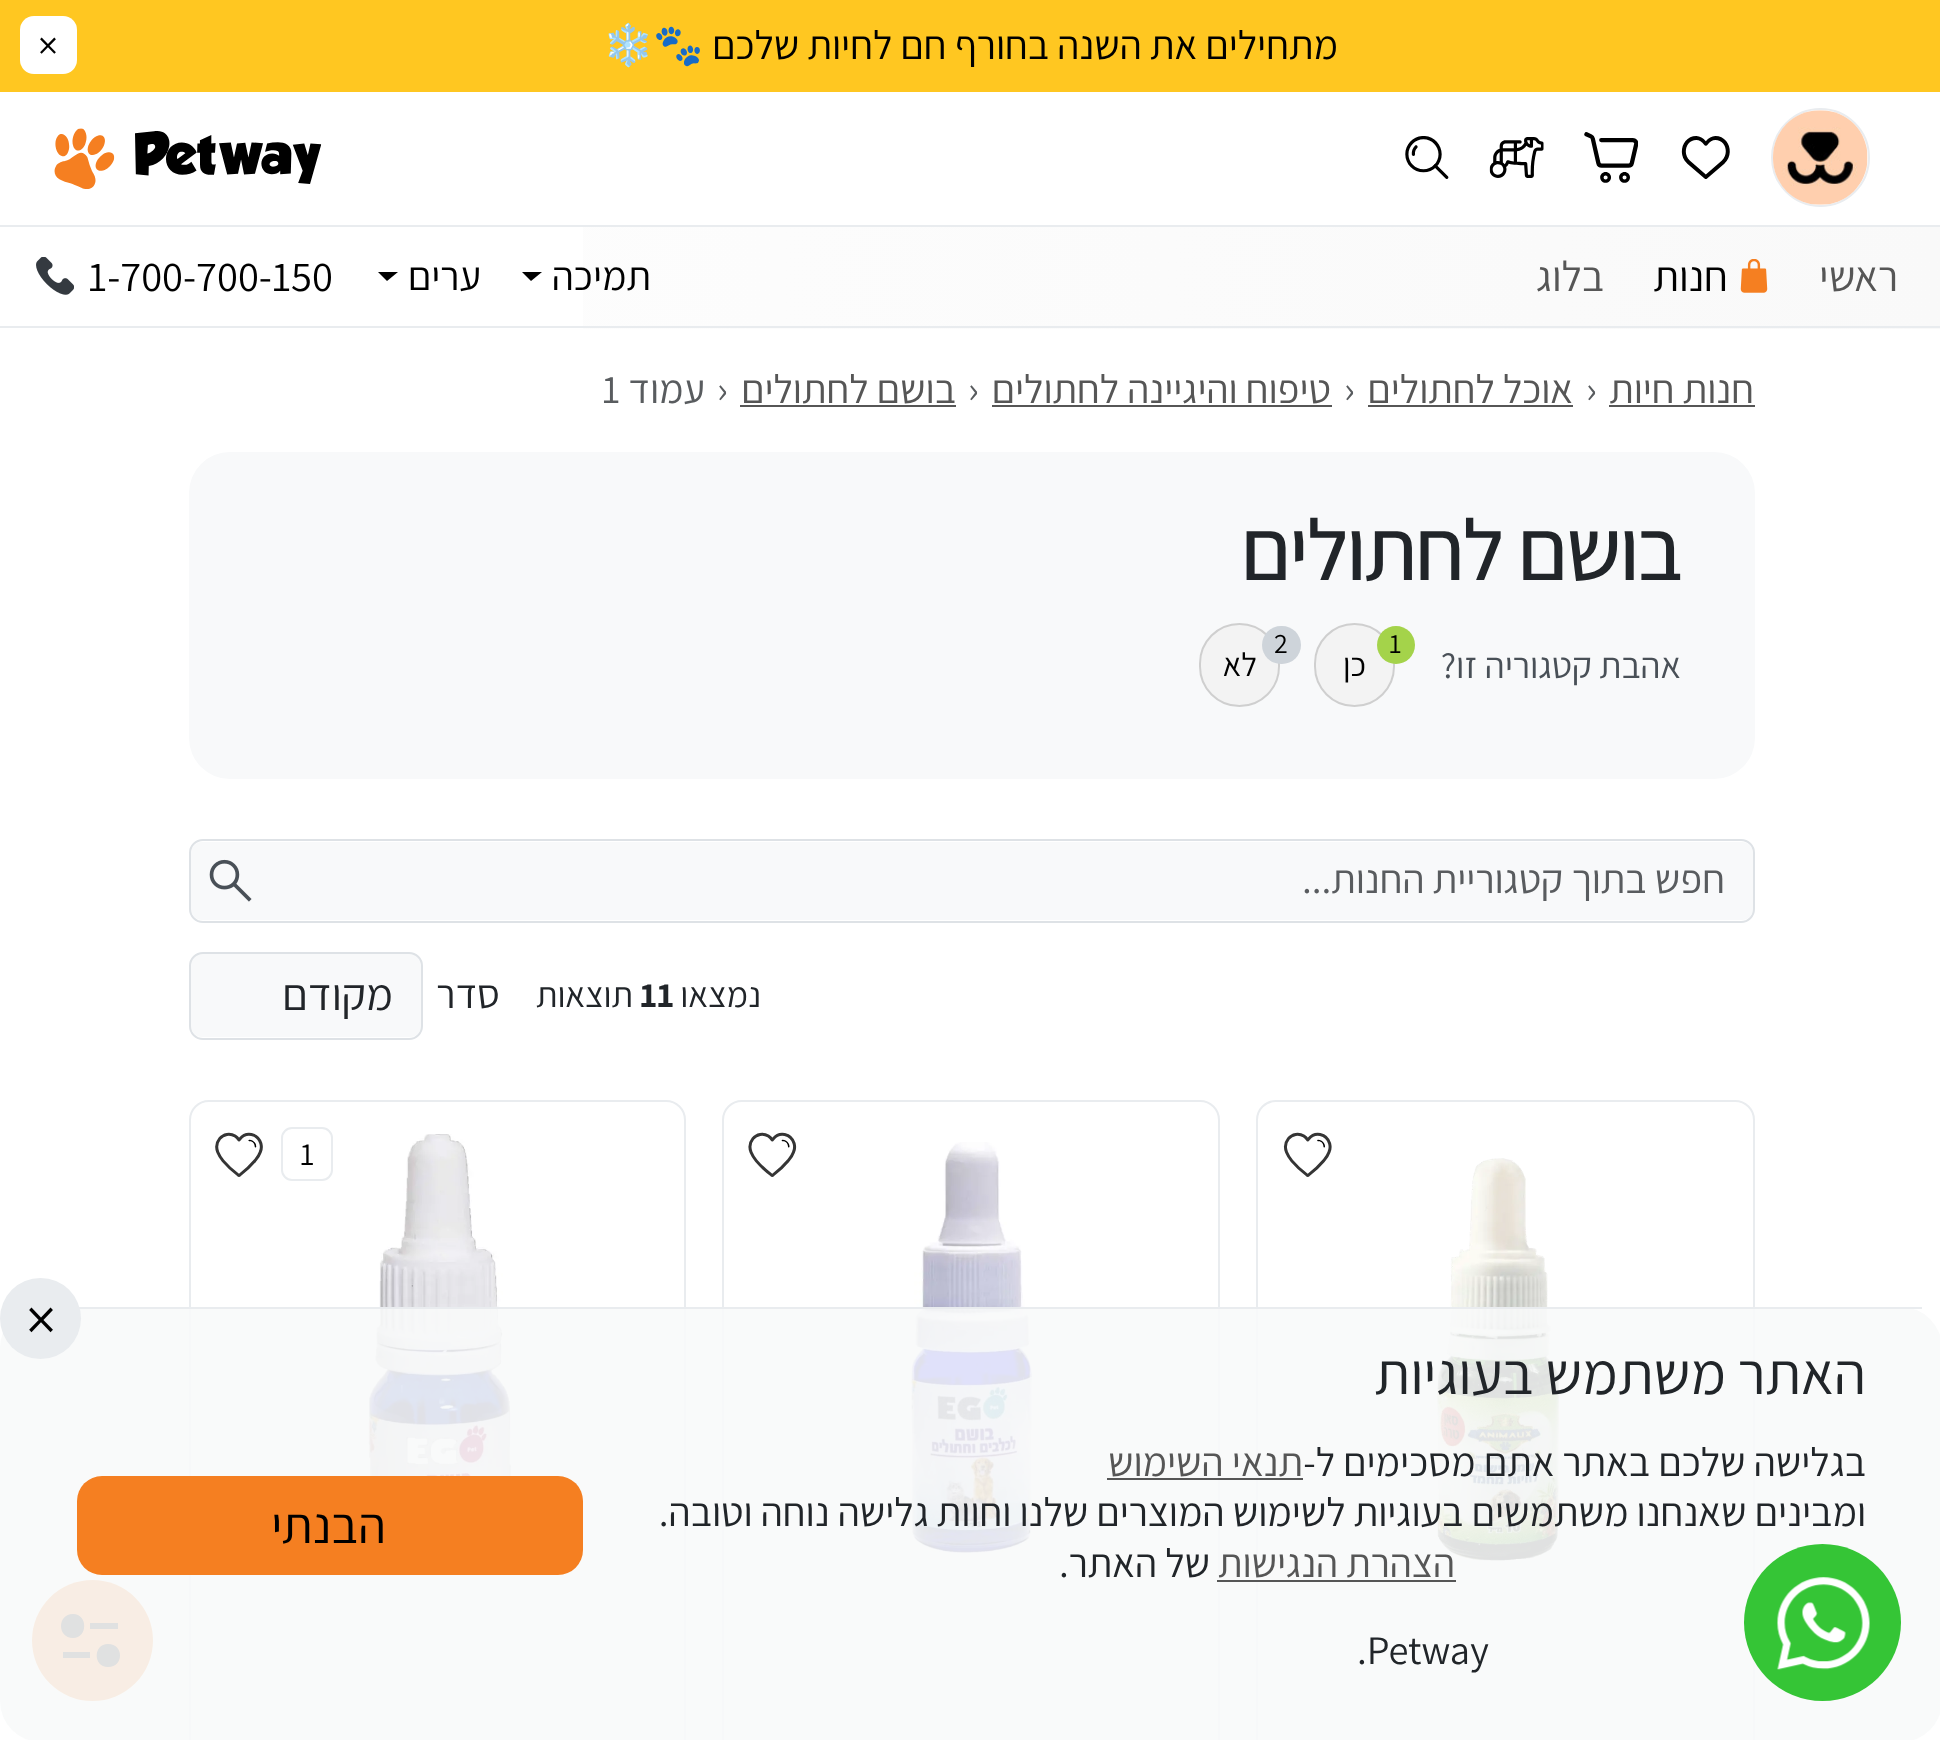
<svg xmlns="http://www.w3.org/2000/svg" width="1940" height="1740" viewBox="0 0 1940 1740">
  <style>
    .t1 { font: 40.5px Assistant; direction: rtl; fill: #000; }
    .t2 { font: 40.5px Noto Color Emoji; direction: rtl; fill: #000; }
    .t3 { font: 40.5px Assistant; fill: #000; }
    .t4 { font: 42.5px Assistant; direction: rtl; fill: #565656; }
    .t5 { font: 42.5px Assistant; direction: rtl; fill: #000; }
    .t6 { font: 42.5px Assistant; fill: #000; }
    .t7 { font: 40.5px Assistant; direction: rtl; fill: #565656; }
    .t8 { font: 40.5px Assistant; fill: #595c5f; }
    .t9 { font: 40.5px Assistant; direction: rtl; fill: #595c5f; }
    .t10 { font: 500 87px Assistant; letter-spacing: -2.25px; direction: rtl; fill: #212529; }
    .t11 { font: 36.5px Assistant; direction: rtl; fill: #495057; }
    .t12 { font: 28px Assistant; fill: #000; }
    .t13 { font: 33px Assistant; direction: rtl; fill: #000; }
    .t14 { font: 35.5px Assistant; direction: rtl; fill: #212529; }
    .t15 { font: bold 35.5px Assistant; fill: #212529; }
    .t16 { font: 40.5px Assistant; direction: rtl; fill: #212529; }
    .t17 { font: 44.5px Assistant; direction: rtl; fill: #212529; }
    .t18 { font: 32px Assistant; fill: #000; }
    .t19 { font: 61px Assistant; fill: #000; }
    .t20 { font: 58.75px Assistant; direction: rtl; fill: #212529; }
    .t21 { font: 40.5px Assistant; fill: #212529; }
    .t22 { font: 51px Assistant; direction: rtl; fill: #000; }
  </style>
  <defs>
    <linearGradient id="g1" gradientUnits="userSpaceOnUse" x1="0" y1="277" x2="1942" y2="277"><stop offset="0" stop-color="#fefefe"/><stop offset="1" stop-color="#f9f9f9"/></linearGradient>
  </defs>
  <rect width="100%" height="100%" fill="#fff"/>
  <rect x="0" y="0" width="1940" height="92" fill="#ffc721"/>
  <text x="1338" y="59" class="t1">מתחילים את השנה בחורף חם לחיות שלכם</text>
  <text x="704" y="59" class="t2">🐾❄️</text>
  <rect x="20" y="16" width="57" height="58" rx="14" fill="#fff"/>
  <text x="38" y="59" class="t3">×</text>
  <rect x="0" y="225" width="1940" height="2" fill="#e9ecef"/>
  <circle cx="1820.5" cy="157.5" r="48.5" fill="none" stroke="#e9ecef" stroke-width="2"/>
  <image x="1773" y="110" width="95" height="95" href="images/1.png"/>
  <image x="1681" y="136" width="49" height="43" href="images/2.png"/>
  <image x="1584" y="132" width="54" height="51" href="images/3.png"/>
  <image x="1489" y="137" width="55" height="41" href="images/4.png"/>
  <image x="1405" y="136" width="44" height="43" href="images/5.png"/>
  <image x="135" y="131" width="187" height="53" href="images/6.png"/>
  <image x="54" y="128" width="61" height="61" href="images/7.png"/>
  <rect x="583" y="227" width="1357" height="102" fill="url(#g1)"/>
  <rect x="0" y="326" width="1940" height="2" fill="#e9ecef"/>
  <text x="1898" y="291" class="t4">ראשי</text>
  <image x="1740" y="259" width="28" height="34" href="images/8.png"/>
  <text x="1728" y="291" class="t5">חנות</text>
  <text x="1604" y="291" class="t4">בלוג</text>
  <text x="651" y="290" class="t1">תמיכה</text>
  <path d="M522 272H542L531 281Z" fill="#000"/>
  <text x="481" y="290" class="t1">ערים</text>
  <path d="M378 272H398L387 281Z" fill="#000"/>
  <text x="88" y="291" class="t6">1-700-700-150</text>
  <image x="36" y="257" width="38" height="38" href="images/9.png"/>
  <text x="1754" y="403" class="t7">חנות חיות</text>
  <rect x="1609" y="405" width="146" height="2" fill="#565656"/>
  <text x="1586" y="403" class="t8">›</text>
  <text x="1573" y="403" class="t7">אוכל לחתולים</text>
  <rect x="1368" y="405" width="205" height="2" fill="#565656"/>
  <text x="1344" y="403" class="t8">›</text>
  <text x="1331" y="403" class="t7">טיפוח והיגיינה לחתולים</text>
  <rect x="992" y="405" width="340" height="2" fill="#565656"/>
  <text x="968" y="403" class="t8">›</text>
  <text x="956" y="403" class="t7">בושם לחתולים</text>
  <rect x="740" y="405" width="216" height="2" fill="#565656"/>
  <text x="717" y="403" class="t8">›</text>
  <text x="705" y="403" class="t9">עמוד</text>
  <text x="602" y="403" class="t8">1</text>
  <rect x="189" y="452" width="1566" height="327" rx="41" fill="#f8f9fa"/>
  <text x="1681" y="580" class="t10">בושם לחתולים</text>
  <text x="1681" y="678" class="t11">אהבת קטגוריה זו?</text>
  <rect x="1315" y="624" width="79" height="82" rx="39.5" fill="#f3f3f3" stroke="#cfcfcf" stroke-width="2"/>
  <circle cx="1396" cy="645" r="19" fill="#a4d34a"/>
  <text x="1389" y="653" class="t12">1</text>
  <text x="1366" y="676" class="t13">כן</text>
  <rect x="1200" y="624" width="79" height="82" rx="39.5" fill="#f3f3f3" stroke="#cfcfcf" stroke-width="2"/>
  <rect x="1262" y="626" width="39" height="38" rx="19" fill="#ced4da"/>
  <text x="1274" y="653" class="t12">2</text>
  <text x="1257" y="676" class="t13">לא</text>
  <rect x="191" y="842" width="1562" height="78" rx="11" fill="#f8f9fa"/>
  <rect x="190" y="840" width="1564" height="82" rx="13" fill="none" stroke="#dee2e6" stroke-width="2"/>
  <text x="1725" y="893" class="t9">חפש בתוך קטגוריית החנות...</text>
  <image x="209" y="859" width="43" height="43" href="images/10.png"/>
  <text x="761" y="1007" class="t14">נמצאו</text>
  <text x="640" y="1007" class="t15">11</text>
  <text x="633" y="1007" class="t14">תוצאות</text>
  <text x="500" y="1008" class="t16">סדר</text>
  <rect x="191" y="954" width="230" height="83" rx="11" fill="#f8f9fa"/>
  <rect x="190" y="953" width="232" height="86" rx="13" fill="none" stroke="#dee2e6" stroke-width="2"/>
  <text x="393" y="1010" class="t17">מקודם</text>
  <rect x="1257" y="1101" width="497" height="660" rx="19" fill="none" stroke="#e9ecef" stroke-width="2"/>
  <image x="1437" y="1158" width="213" height="403" href="images/11.png"/>
  <image x="1283" y="1132" width="49" height="45" href="images/12.png"/>
  <rect x="723" y="1101" width="496" height="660" rx="19" fill="none" stroke="#e9ecef" stroke-width="2"/>
  <image x="907" y="1142" width="127" height="413" href="images/13.png"/>
  <image x="748" y="1132" width="49" height="45" href="images/14.png"/>
  <rect x="190" y="1101" width="495" height="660" rx="19" fill="none" stroke="#e9ecef" stroke-width="2"/>
  <image x="367" y="1134" width="145" height="342" href="images/15.png"/>
  <rect x="282" y="1128" width="50" height="52" rx="10" fill="none" stroke="#e9ecef" stroke-width="2"/>
  <text x="300" y="1165" class="t18">1</text>
  <image x="215" y="1132" width="48" height="45" href="images/16.png"/>
  <circle cx="92.5" cy="1640.5" r="60.5" fill="#f57f21"/>
  <path d="M108 1667C93 1667 93 1644 108 1644C124 1644 124 1667 108 1667ZM63 1658V1652H90V1658ZM73 1638C57 1638 57 1614 73 1614C88 1614 88 1638 73 1638ZM90 1629V1623H118V1629Z" fill="#000"/>
  <rect x="0" y="1307" width="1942" height="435" rx="41" fill="#f8f9fae6"/>
  <rect x="79" y="1307" width="1843" height="2" fill="#e9ecef"/>
  <circle cx="40.5" cy="1318.5" r="40.5" fill="#e9ecef"/>
  <text x="26" y="1340" class="t19">×</text>
  <text x="1866" y="1394" class="t20">האתר משתמש בעוגיות</text>
  <text x="1866" y="1476" class="t16">בגלישה שלכם באתר אתם מסכימים ל-</text>
  <text x="1303" y="1476" class="t7">תנאי השימוש</text>
  <rect x="1107" y="1478" width="196" height="2" fill="#565656"/>
  <text x="1866" y="1526" class="t16">ומבינים שאנחנו משתמשים בעוגיות לשימוש המוצרים שלנו וחוות גלישה נוחה וטובה.</text>
  <text x="1455" y="1577" class="t7">הצהרת הנגישות</text>
  <rect x="1217" y="1580" width="239" height="2" fill="#565656"/>
  <text x="1210" y="1577" class="t16">של האתר.</text>
  <text x="1357" y="1664" class="t21">.Petway</text>
  <rect x="77" y="1476" width="506" height="99" rx="25" fill="#f57f21"/>
  <text x="386" y="1543" class="t22">הבנתי</text>
  <circle cx="1822.5" cy="1622.5" r="78.5" fill="#35c536"/>
  <image x="1777" y="1577" width="93" height="93" href="images/17.png"/>
</svg>
